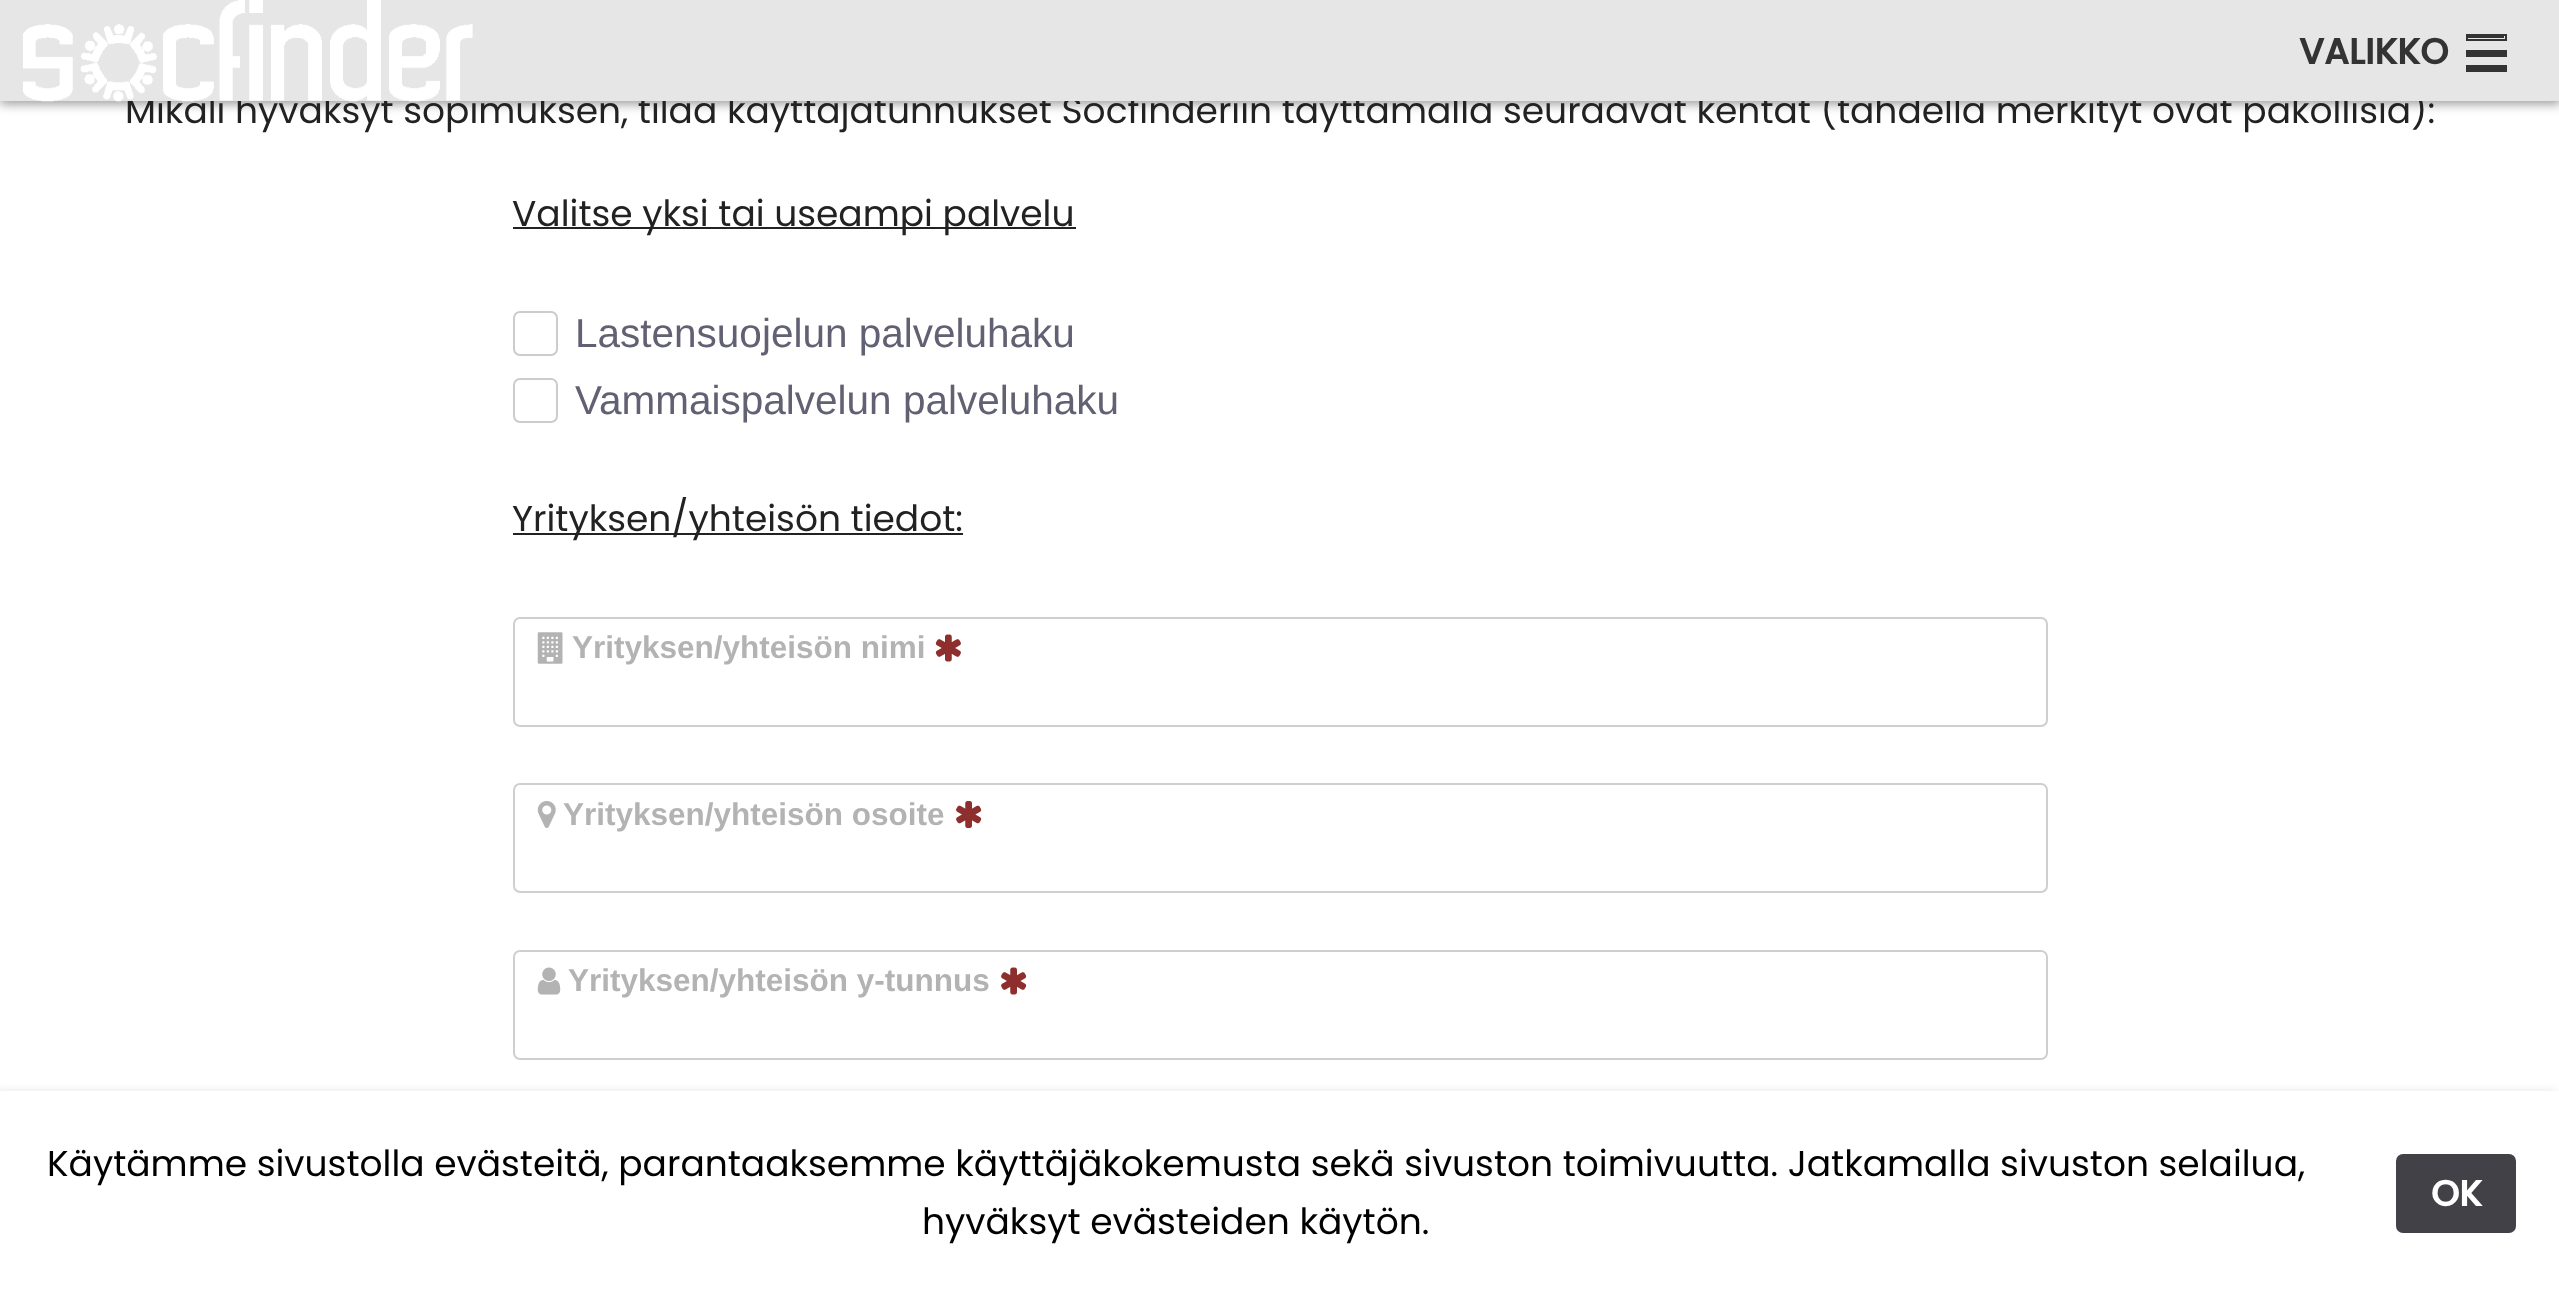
<svg xmlns="http://www.w3.org/2000/svg" width="2559" height="1294" viewBox="0 0 2559 1294">
  <style>
    .t1 { font: 36px Poppins; fill: #222; }
    .t2 { font: bold 36px Poppins; fill: #333; }
    .t3 { font: 40.5px Liberation Sans; fill: #616173; }
    .t4 { font: bold 31.5px Liberation Sans; fill: #b3b3b3; }
    .t5 { font: 36px Poppins; fill: #000; }
    .t6 { font: bold 36px Poppins; fill: #fff; }
  </style>
  <rect width="100%" height="100%" fill="#fff"/>
  <rect x="0" y="2" width="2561" height="102" fill="#00000066" filter="blur(5.5px)"/>
  <text x="125" y="123" class="t1">Mikäli hyväksyt sopimuksen, tilaa käyttäjätunnukset Socfinderiin täyttämällä seuraavat kentät (tähdellä merkityt ovat pakollisia):</text>
  <rect x="0" y="0" width="2559" height="101" fill="#e6e6e6"/>
  <image x="23" y="0" width="450" height="102" href="images/1.png"/>
  <text x="2299" y="64" class="t2">VALIKKO</text>
  <rect x="2466" y="65" width="41" height="7" fill="#333"/>
  <rect x="2466" y="50" width="41" height="7" fill="#333"/>
  <rect x="2467" y="35" width="39" height="5" fill="none" stroke="#333" stroke-width="2"/>
  <rect x="2468" y="36" width="36" height="2" fill="#333"/>
  <rect x="513" y="227" width="563" height="2" fill="#222"/>
  <text x="512" y="226" class="t1">Valitse yksi tai useampi palvelu</text>
  <rect x="514" y="312" width="43" height="43" rx="6" fill="none" stroke="#ccc" stroke-width="2"/>
  <text x="575" y="347" class="t3">Lastensuojelun palveluhaku</text>
  <rect x="514" y="379" width="43" height="43" rx="6" fill="none" stroke="#ccc" stroke-width="2"/>
  <text x="575" y="414" class="t3">Vammaispalvelun palveluhaku</text>
  <rect x="513" y="533" width="450" height="2" fill="#222"/>
  <text x="512" y="531" class="t1">Yrityksen/yhteisön tiedot:</text>
  <rect x="514" y="618" width="1533" height="108" rx="6" fill="none" stroke="#cfcfcf" stroke-width="2"/>
  <image x="537" y="632" width="26" height="32" href="images/2.png"/>
  <text x="572" y="658" class="t4">Yrityksen/yhteisön nimi</text>
  <image x="935" y="634" width="26" height="28" href="images/3.png"/>
  <rect x="514" y="784" width="1533" height="108" rx="6" fill="none" stroke="#cfcfcf" stroke-width="2"/>
  <image x="537" y="801" width="19" height="27" href="images/4.png"/>
  <text x="563" y="825" class="t4">Yrityksen/yhteisön osoite</text>
  <image x="956" y="801" width="26" height="27" href="images/5.png"/>
  <rect x="514" y="951" width="1533" height="108" rx="6" fill="none" stroke="#cfcfcf" stroke-width="2"/>
  <image x="537" y="967" width="24" height="28" href="images/6.png"/>
  <text x="568" y="991" class="t4">Yrityksen/yhteisön y-tunnus</text>
  <image x="1001" y="967" width="26" height="28" href="images/7.png"/>
  <rect x="-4" y="1091" width="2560" height="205" fill="#0000001a" filter="blur(4.5px)"/>
  <rect x="0" y="1091" width="2559" height="203" fill="#fff"/>
  <text x="47" y="1176" class="t5">Käytämme sivustolla evästeitä, parantaaksemme käyttäjäkokemusta sekä sivuston toimivuutta. Jatkamalla sivuston selailua,</text>
  <text x="922" y="1234" class="t5">hyväksyt evästeiden käytön.</text>
  <rect x="2396" y="1154" width="120" height="79" rx="7" fill="#424147"/>
  <text x="2431" y="1206" class="t6">OK</text>
</svg>
